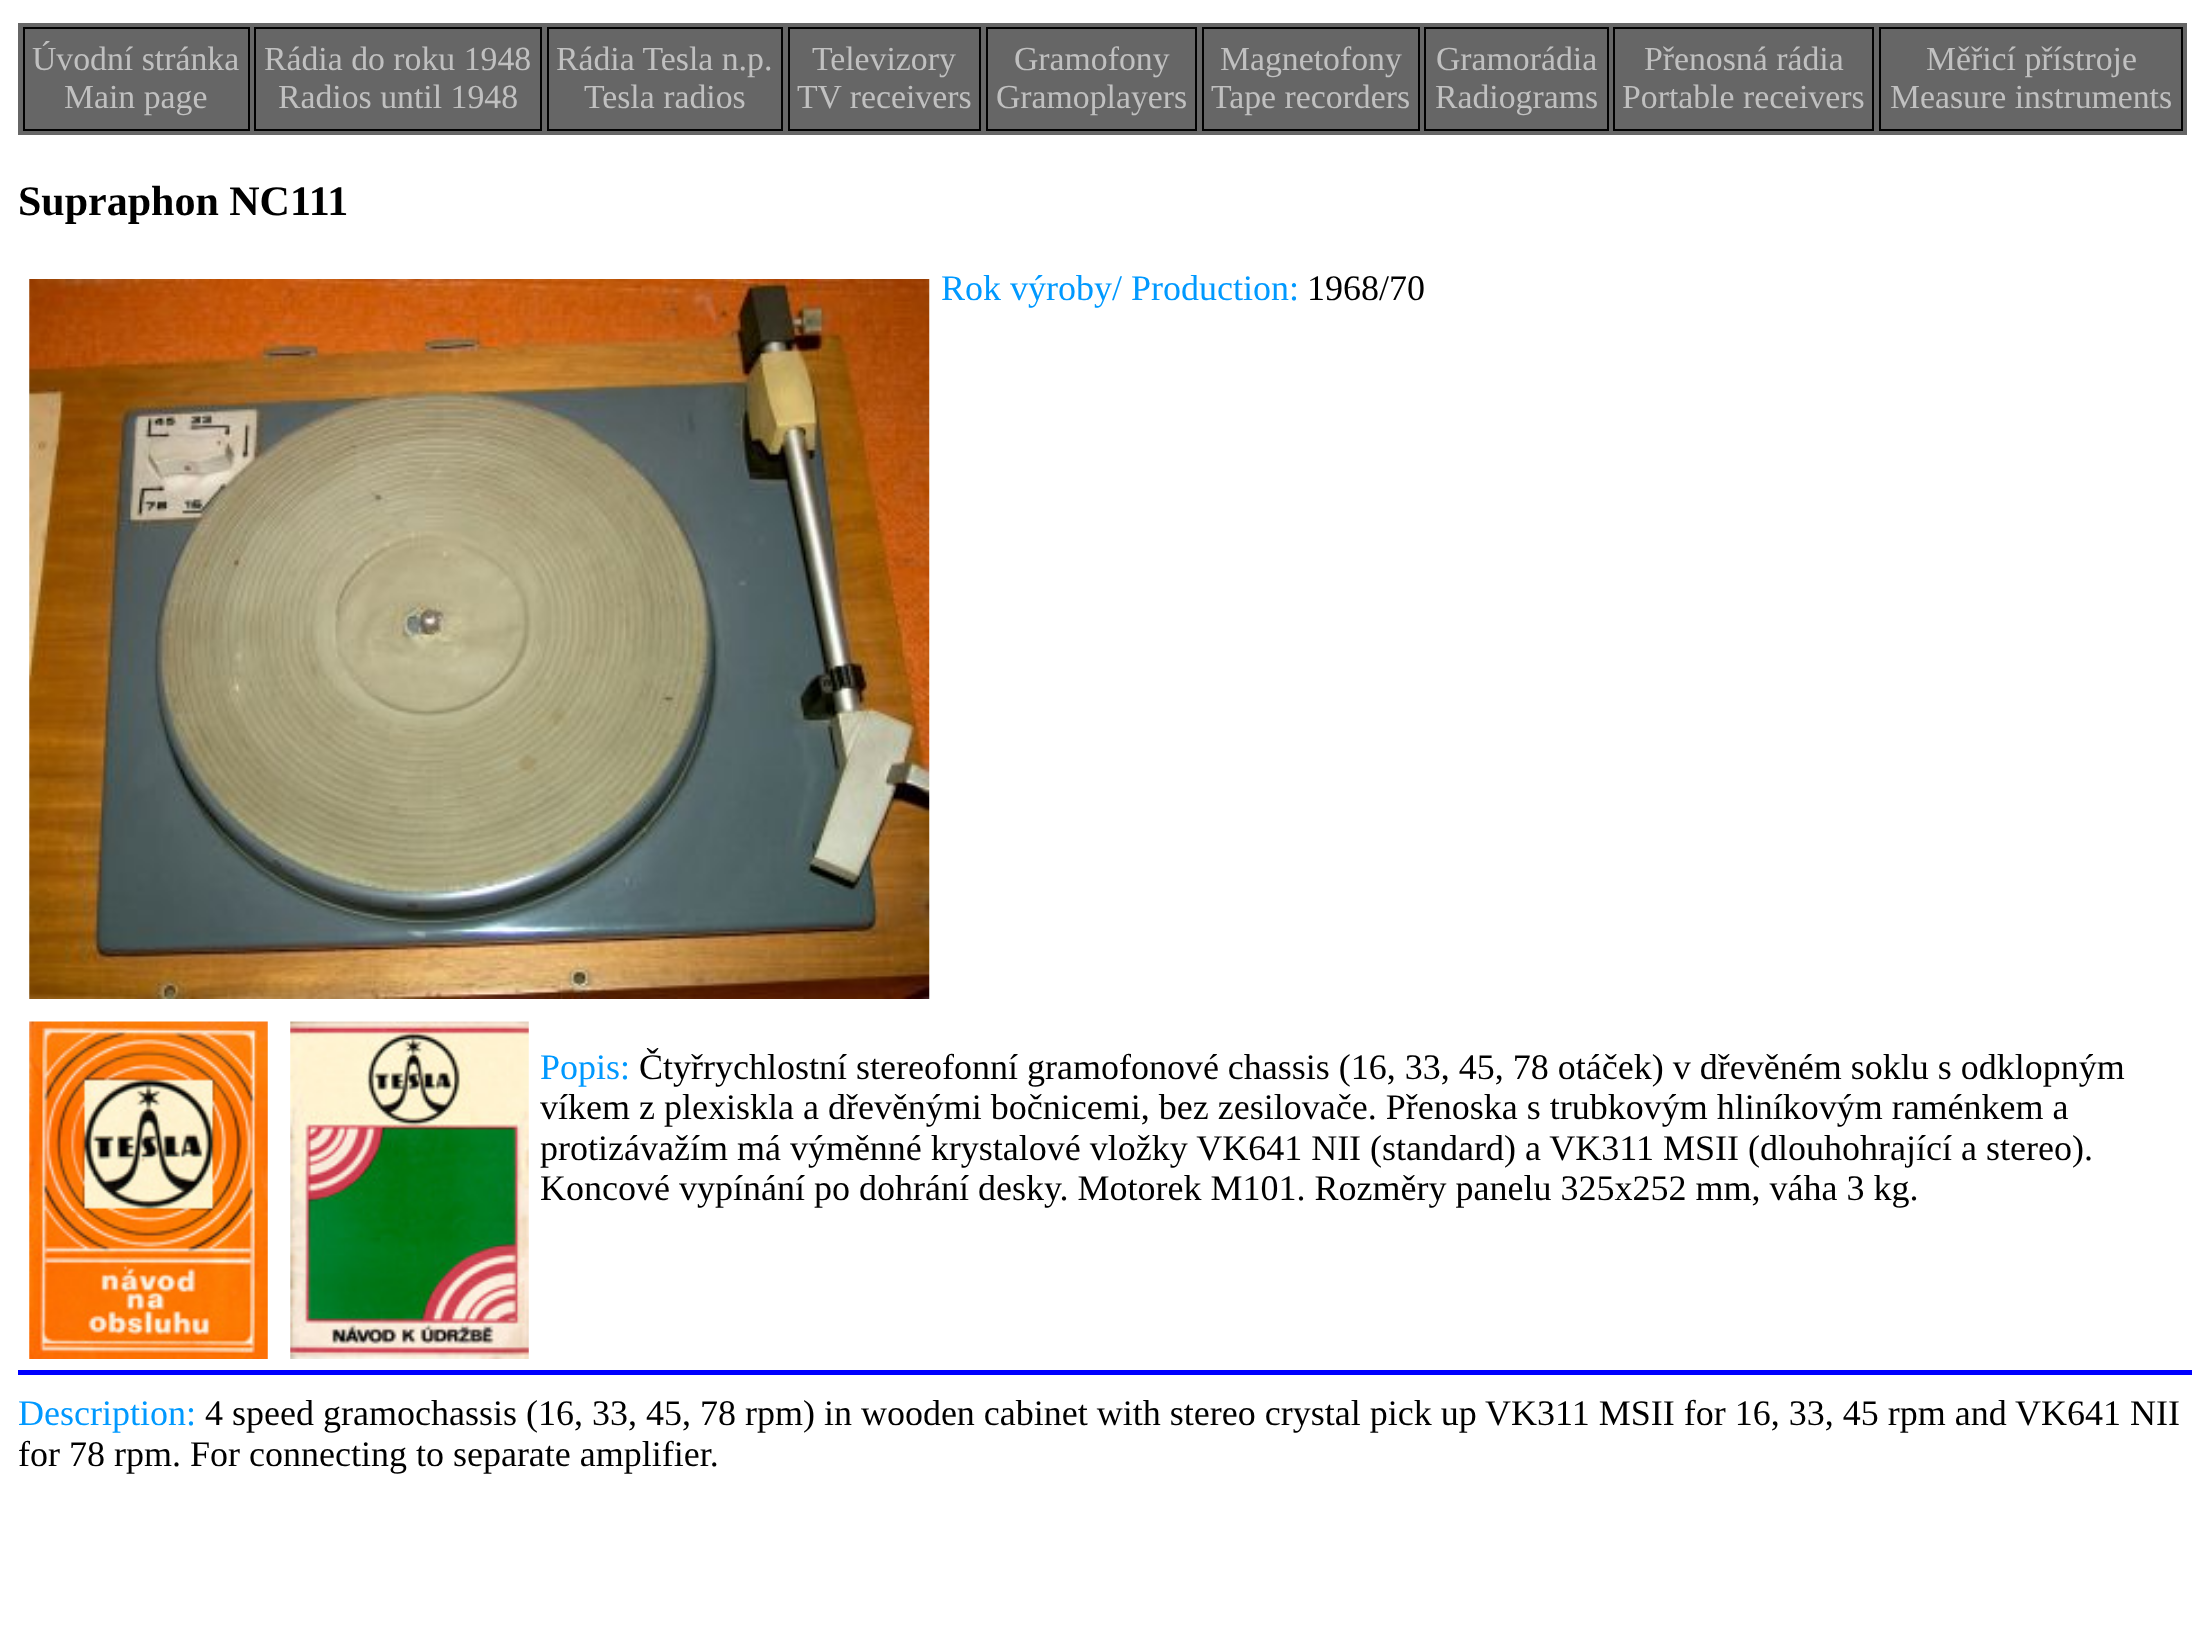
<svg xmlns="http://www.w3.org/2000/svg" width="2204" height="1650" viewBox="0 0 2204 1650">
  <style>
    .t1 { font: 33.75px Liberation Serif; fill: #c0c0c0; }
    .t2 { font: bold 42px Liberation Serif; fill: #000; }
    .t3 { font: 36px Liberation Serif; fill: #09f; }
    .t4 { font: 36px Liberation Serif; fill: #000; }
  </style>
  <rect width="100%" height="100%" fill="#fff"/>
  <rect x="18" y="23" width="2169" height="112" fill="#666"/>
  <rect x="24" y="28" width="225" height="102" fill="none" stroke="#000" stroke-width="2"/>
  <text x="32" y="70" class="t1">Úvodní stránka</text>
  <text x="64" y="108" class="t1">Main page</text>
  <rect x="255" y="28" width="286" height="102" fill="none" stroke="#000" stroke-width="2"/>
  <text x="264" y="70" class="t1">Rádia do roku 1948</text>
  <text x="278" y="108" class="t1">Radios until 1948</text>
  <rect x="548" y="28" width="234" height="102" fill="none" stroke="#000" stroke-width="2"/>
  <text x="556" y="70" class="t1">Rádia Tesla n.p.</text>
  <text x="584" y="108" class="t1">Tesla radios</text>
  <rect x="789" y="28" width="191" height="102" fill="none" stroke="#000" stroke-width="2"/>
  <text x="812" y="70" class="t1">Televizory</text>
  <text x="797" y="108" class="t1">TV receivers</text>
  <rect x="987" y="28" width="209" height="102" fill="none" stroke="#000" stroke-width="2"/>
  <text x="1014" y="70" class="t1">Gramofony</text>
  <text x="996" y="108" class="t1">Gramoplayers</text>
  <rect x="1203" y="28" width="216" height="102" fill="none" stroke="#000" stroke-width="2"/>
  <text x="1220" y="70" class="t1">Magnetofony</text>
  <text x="1211" y="108" class="t1">Tape recorders</text>
  <rect x="1425" y="28" width="183" height="102" fill="none" stroke="#000" stroke-width="2"/>
  <text x="1436" y="70" class="t1">Gramorádia</text>
  <text x="1435" y="108" class="t1">Radiograms</text>
  <rect x="1614" y="28" width="259" height="102" fill="none" stroke="#000" stroke-width="2"/>
  <text x="1644" y="70" class="t1">Přenosná rádia</text>
  <text x="1622" y="108" class="t1">Portable receivers</text>
  <rect x="1880" y="28" width="302" height="102" fill="none" stroke="#000" stroke-width="2"/>
  <text x="1926" y="70" class="t1">Měřicí přístroje</text>
  <text x="1890" y="108" class="t1">Measure instruments</text>
  <text x="18" y="215" class="t2">Supraphon NC111</text>
  <image x="29" y="279" width="901" height="720" href="images/1.png"/>
  <text x="941" y="300" class="t3">Rok výroby/ Production:</text>
  <text x="1307" y="300" class="t4">1968/70</text>
  <image x="29" y="1021" width="239" height="338" href="images/2.png"/>
  <image x="290" y="1021" width="239" height="338" href="images/3.png"/>
  <text x="540" y="1079" class="t3">Popis:</text>
  <text x="639" y="1079" class="t4">Čtyřrychlostní stereofonní gramofonové chassis (16, 33, 45, 78 otáček) v dřevěném soklu s odklopným</text>
  <text x="540" y="1119" class="t4">víkem z plexiskla a dřevěnými bočnicemi, bez zesilovače. Přenoska s trubkovým hliníkovým raménkem a</text>
  <text x="540" y="1160" class="t4">protizávažím má výměnné krystalové vložky VK641 NII (standard) a VK311 MSII (dlouhohrající a stereo).</text>
  <text x="540" y="1200" class="t4">Koncové vypínání po dohrání desky. Motorek M101. Rozměry panelu 325x252 mm, váha 3 kg.</text>
  <rect x="18" y="1370" width="2174" height="5" fill="#00f"/>
  <text x="18" y="1425" class="t3">Description:</text>
  <text x="205" y="1425" class="t4">4 speed gramochassis (16, 33, 45, 78 rpm) in wooden cabinet with stereo crystal pick up VK311 MSII for 16, 33, 45 rpm and VK641 NII</text>
  <text x="18" y="1466" class="t4">for 78 rpm. For connecting to separate amplifier.</text>
</svg>
